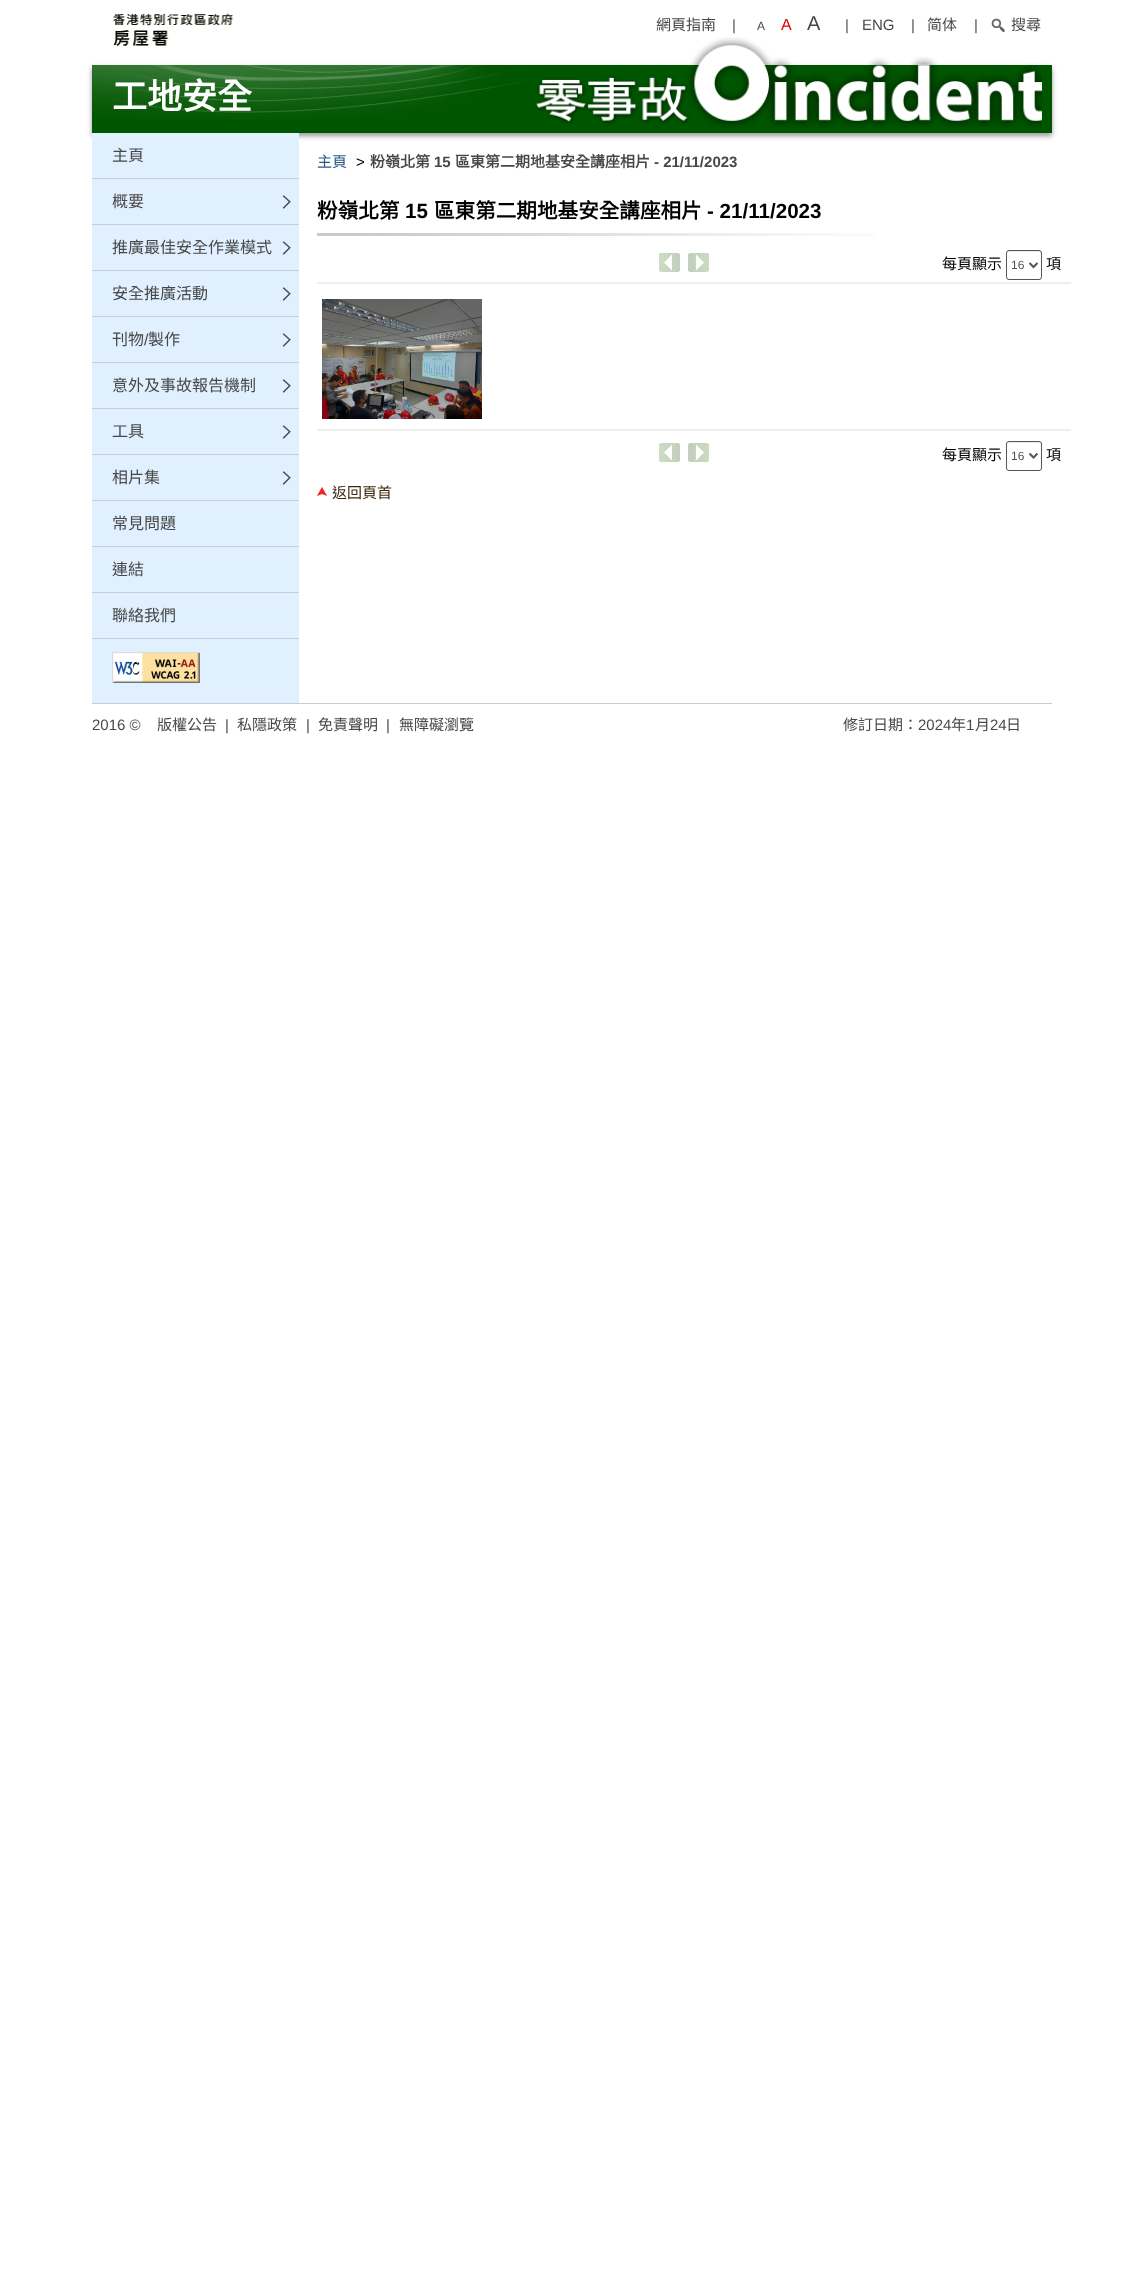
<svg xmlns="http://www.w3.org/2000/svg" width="1143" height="2273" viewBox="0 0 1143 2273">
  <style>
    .t1 { font: 15px Noto Sans CJK HK; fill: #484848; }
    .t2 { font: 15px Liberation Sans; fill: #525252; }
    .t3 { font: 12px Liberation Sans; fill: #484848; }
    .t4 { font: 16px Liberation Sans; fill: #db0000; }
    .t5 { font: 20px Liberation Sans; fill: #484848; }
    .t6 { font: 15px Liberation Sans; fill: #484848; }
    .t7 { font: bold 35px Noto Sans CJK HK; fill: #fff; }
    .t8 { font: 16px Noto Sans CJK HK; fill: #484848; }
    .t9 { font: 16px Liberation Sans; fill: #484848; }
    .t10 { font: 15px Noto Sans CJK HK; fill: #265a87; }
    .t11 { font: 15px Liberation Sans; fill: #000; }
    .t12 { font: bold 15px Noto Sans CJK HK; fill: #484848; }
    .t13 { font: bold 15px Liberation Sans; fill: #484848; }
    .t14 { font: bold 20.6px Noto Sans CJK HK; fill: #000; }
    .t15 { font: bold 20.6px Liberation Sans; fill: #000; }
    .t16 { font: 15px Noto Sans CJK HK; fill: #000; }
    .t17 { font: 12px Liberation Sans; fill: #525252; }
    .t18 { font: 15px Noto Sans CJK HK; fill: #3e290f; }
  </style>
  <rect width="100%" height="100%" fill="#fff"/>
  <image x="113" y="13" width="120" height="33" href="images/1.png"/>
  <text x="656" y="30" class="t1">網頁指南</text>
  <text x="732" y="30" class="t2">|</text>
  <text x="757" y="30" class="t3">A</text>
  <text x="781" y="30" class="t4">A</text>
  <text x="807" y="30" class="t5">A</text>
  <text x="845" y="30" class="t2">|</text>
  <text x="862" y="30" class="t6">ENG</text>
  <text x="911" y="30" class="t2">|</text>
  <text x="927" y="30" class="t1">简体</text>
  <text x="974" y="30" class="t2">|</text>
  <image x="990" y="17" width="15" height="15" href="images/2.png"/>
  <text x="1011" y="30" class="t1">搜尋</text>
  <rect x="92" y="68" width="960" height="68" fill="#00000066" filter="blur(2.5px)"/>
  <rect x="92" y="65" width="960" height="68" fill="#050"/>
  <image x="92" y="65" width="433" height="56" href="images/3.png"/>
  <text x="112" y="109" class="t7">工地安全</text>
  <image x="536" y="37" width="506" height="91" href="images/4.png"/>
  <rect x="92" y="133" width="207" height="570" fill="#e1f0ff"/>
  <rect x="92" y="178" width="207" height="1" fill="#ccc"/>
  <text x="112" y="161" class="t8">主頁</text>
  <rect x="92" y="224" width="207" height="1" fill="#ccc"/>
  <image x="282" y="195" width="9" height="14" href="images/5.png"/>
  <text x="112" y="207" class="t8">概要</text>
  <rect x="92" y="270" width="207" height="1" fill="#ccc"/>
  <image x="282" y="241" width="9" height="14" href="images/5.png"/>
  <text x="112" y="253" class="t8">推廣最佳安全作業模式</text>
  <rect x="92" y="316" width="207" height="1" fill="#ccc"/>
  <image x="282" y="287" width="9" height="14" href="images/5.png"/>
  <text x="112" y="299" class="t8">安全推廣活動</text>
  <rect x="92" y="362" width="207" height="1" fill="#ccc"/>
  <image x="282" y="333" width="9" height="14" href="images/5.png"/>
  <text x="112" y="345" class="t8">刊物</text>
  <text x="144" y="345" class="t9">/</text>
  <text x="148" y="345" class="t8">製作</text>
  <rect x="92" y="408" width="207" height="1" fill="#ccc"/>
  <image x="282" y="379" width="9" height="14" href="images/5.png"/>
  <text x="112" y="391" class="t8">意外及事故報告機制</text>
  <rect x="92" y="454" width="207" height="1" fill="#ccc"/>
  <image x="282" y="425" width="9" height="14" href="images/5.png"/>
  <text x="112" y="437" class="t8">工具</text>
  <rect x="92" y="500" width="207" height="1" fill="#ccc"/>
  <image x="282" y="471" width="9" height="14" href="images/5.png"/>
  <text x="112" y="483" class="t8">相片集</text>
  <rect x="92" y="546" width="207" height="1" fill="#ccc"/>
  <text x="112" y="529" class="t8">常見問題</text>
  <rect x="92" y="592" width="207" height="1" fill="#ccc"/>
  <text x="112" y="575" class="t8">連結</text>
  <rect x="92" y="638" width="207" height="1" fill="#ccc"/>
  <text x="112" y="621" class="t8">聯絡我們</text>
  <image x="112" y="652" width="88" height="31" href="images/6.png"/>
  <text x="317" y="167" class="t10">主頁</text>
  <text x="356" y="167" class="t11">&gt;</text>
  <text x="370" y="167" class="t12">粉嶺北第</text>
  <text x="434" y="167" class="t13">15</text>
  <text x="455" y="167" class="t12">區東第二期地基安全講座相片</text>
  <text x="654" y="167" class="t13">- 21/11/2023</text>
  <text x="317" y="218" class="t14">粉嶺北第</text>
  <text x="405" y="218" class="t15">15</text>
  <text x="434" y="218" class="t14">區東第二期地基安全講座相片</text>
  <text x="707" y="218" class="t15">- 21/11/2023</text>
  <image x="317" y="233" width="558" height="3" href="images/7.png"/>
  <image x="659" y="253" width="21" height="19" href="images/8.png"/>
  <image x="688" y="253" width="21" height="19" href="images/9.png"/>
  <text x="942" y="269" class="t16">每頁顯示</text>
  <path d="M1009 252H1037.5C1041.5 252 1041 254.5 1041 258V253C1041 252 1040 251 1039 251H1009C1008 251 1007 252 1007 253Z" fill="#ececec"/>
  <rect x="1006.5" y="250.5" width="35" height="29" rx="2.5" fill="none" stroke="#555"/>
  <path d="M1029.5 263L1033.5 267L1037.5 263" fill="none" stroke="#555" stroke-width="2"/>
  <text x="1011" y="269" class="t17">16</text>
  <text x="1046" y="269" class="t16">項</text>
  <rect x="317" y="282" width="754" height="2" fill="#eee"/>
  <rect x="317" y="429" width="754" height="2" fill="#eee"/>
  <image x="322" y="299" width="160" height="120" href="images/10.png"/>
  <image x="659" y="443" width="21" height="19" href="images/8.png"/>
  <image x="688" y="443" width="21" height="19" href="images/9.png"/>
  <text x="942" y="460" class="t16">每頁顯示</text>
  <path d="M1009 443H1037.5C1041.5 443 1041 445.5 1041 449V444C1041 443 1040 442 1039 442H1009C1008 442 1007 443 1007 444Z" fill="#ececec"/>
  <rect x="1006.5" y="441.5" width="35" height="29" rx="2.5" fill="none" stroke="#555"/>
  <path d="M1029.5 453.5L1033.5 457.5L1037.5 453.5" fill="none" stroke="#555" stroke-width="2"/>
  <text x="1011" y="460" class="t17">16</text>
  <text x="1046" y="460" class="t16">項</text>
  <image x="317" y="487" width="10" height="9" href="images/11.png"/>
  <text x="332" y="498" class="t18">返回頁首</text>
  <rect x="92" y="703" width="960" height="1" fill="#ccc"/>
  <text x="92" y="730" class="t6">2016 ©</text>
  <text x="157" y="730" class="t1">版權公告</text>
  <text x="225" y="730" class="t6">|</text>
  <text x="237" y="730" class="t1">私隱政策</text>
  <text x="306" y="730" class="t6">|</text>
  <text x="318" y="730" class="t1">免責聲明</text>
  <text x="386" y="730" class="t6">|</text>
  <text x="399" y="730" class="t1">無障礙瀏覽</text>
  <text x="843" y="730" class="t1">修訂日期：</text>
  <text x="918" y="730" class="t6">2024</text>
  <text x="951" y="730" class="t1">年</text>
  <text x="966" y="730" class="t6">1</text>
  <text x="975" y="730" class="t1">月</text>
  <text x="990" y="730" class="t6">24</text>
  <text x="1006" y="730" class="t1">日</text>
</svg>
